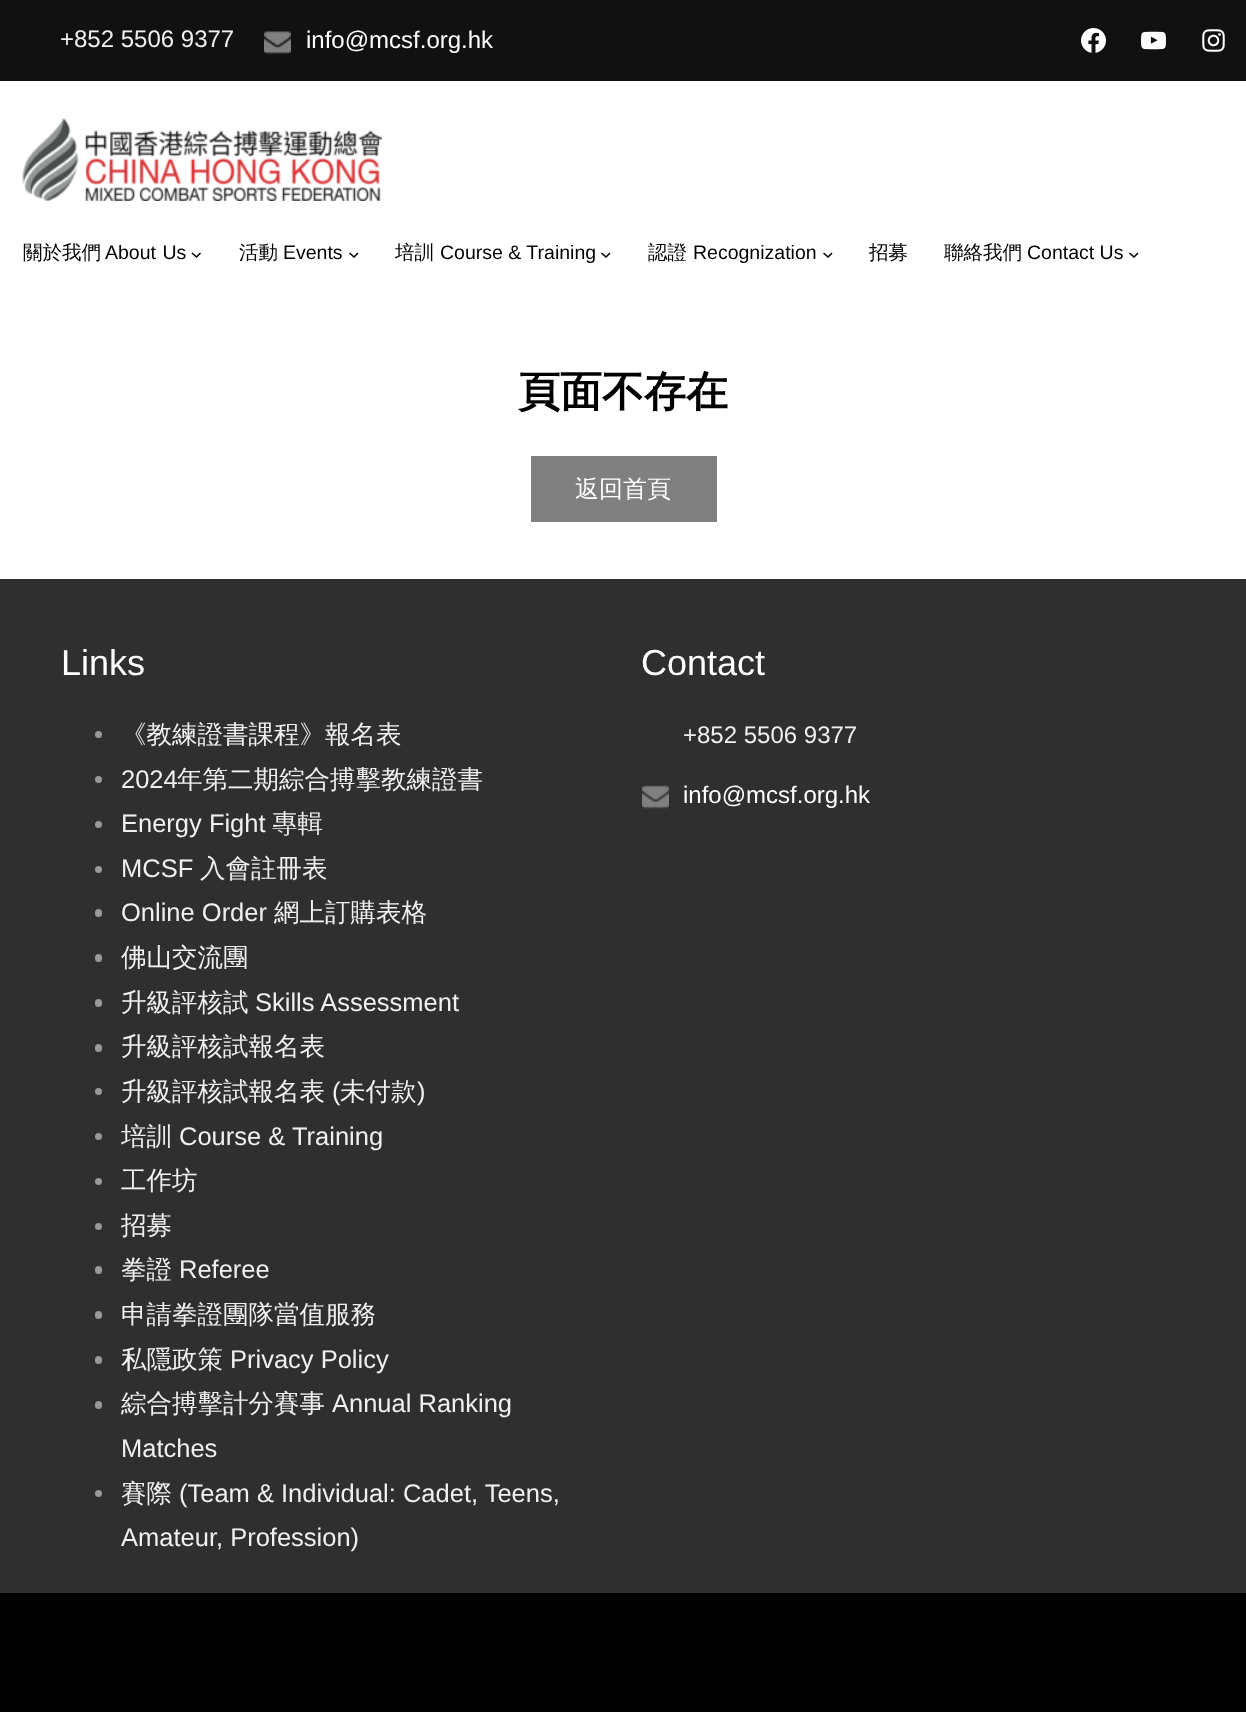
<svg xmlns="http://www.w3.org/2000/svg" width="1246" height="1712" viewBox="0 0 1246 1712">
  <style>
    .t1 { font: 24px Liberation Sans; fill: #f0f0f0; }
    .t2 { font: 24px Liberation Sans; fill: #fff; }
    .t3 { font: 500 19.5px WenQuanYi Zen Hei; fill: #000; }
    .t4 { font: 19.5px Liberation Sans; fill: #000; }
    .t5 { font: bold 42px WenQuanYi Zen Hei; fill: #000; }
    .t6 { font: 500 24px WenQuanYi Zen Hei; fill: #fff; }
    .t7 { font: 36px Liberation Sans; fill: #fff; }
    .t8 { font: 500 25.5px WenQuanYi Zen Hei; fill: #f0f0f0; }
    .t9 { font: 25.5px Liberation Sans; fill: #f0f0f0; }
  </style>
  <rect width="100%" height="100%" fill="#000"/>
  <rect x="0" y="0" width="1246" height="81" fill="#111"/>
  <text x="60" y="47" class="t1">+852 5506 9377</text>
  <image x="264" y="31" width="27" height="24" href="images/1.png"/>
  <text x="306" y="48" class="t2">info@mcsf.org.hk</text>
  <image x="1081" y="28" width="25" height="25" href="images/2.png"/>
  <image x="1141" y="31" width="25" height="19" href="images/3.png"/>
  <image x="1202" y="29" width="23" height="23" href="images/4.png"/>
  <rect x="0" y="81" width="1246" height="498" fill="#fff"/>
  <image x="22" y="118" width="361" height="83" href="images/5.png"/>
  <text x="23" y="259" class="t3">關於我們</text>
  <text x="105" y="259" word-spacing="1" class="t4">About Us</text>
  <path d="M192 253L196.5 257L200.5 253" fill="none" stroke="#000" stroke-width="1.5"/>
  <text x="239" y="259" class="t3">活動</text>
  <text x="283" y="259" class="t4">Events</text>
  <path d="M349.5 253L354 257L358 253" fill="none" stroke="#000" stroke-width="1.5"/>
  <text x="395" y="259" class="t3">培訓</text>
  <text x="440" y="259" class="t4">Course &amp; Training</text>
  <path d="M601.5 253L606 257L610 253" fill="none" stroke="#000" stroke-width="1.5"/>
  <text x="648" y="259" class="t3">認證</text>
  <text x="693" y="259" class="t4">Recognization</text>
  <path d="M823.5 253L828 257L832 253" fill="none" stroke="#000" stroke-width="1.5"/>
  <text x="869" y="259" class="t3">招募</text>
  <text x="944" y="259" class="t3">聯絡我們</text>
  <text x="1027" y="259" class="t4">Contact Us</text>
  <path d="M1129.5 253L1134 257L1138 253" fill="none" stroke="#000" stroke-width="1.5"/>
  <text x="518" y="406" class="t5">頁面不存在</text>
  <rect x="531" y="456" width="186" height="66" fill="#808080"/>
  <text x="575" y="497" class="t6">返回首頁</text>
  <rect x="0" y="579" width="1246" height="1014" fill="#302f2f"/>
  <text x="61" y="675" class="t7">Links</text>
  <circle cx="98.5" cy="734.5" r="3.5" fill="#999"/>
  <text x="121" y="743" class="t8">《教練證書課程》報名表</text>
  <circle cx="98.5" cy="779.5" r="3.5" fill="#999"/>
  <text x="121" y="788" class="t9">2024</text>
  <text x="177" y="788" class="t8">年第二期綜合搏擊教練證書</text>
  <circle cx="98.5" cy="824.5" r="3.5" fill="#999"/>
  <text x="121" y="832" class="t9">Energy Fight</text>
  <text x="272" y="832" class="t8">專輯</text>
  <circle cx="98.5" cy="869.5" r="3.5" fill="#999"/>
  <text x="121" y="877" class="t9">MCSF</text>
  <text x="200" y="877" class="t8">入會註冊表</text>
  <rect x="95" y="909" width="7" height="8" rx="3.5" fill="#999"/>
  <text x="121" y="921" class="t9">Online Order</text>
  <text x="274" y="921" class="t8">網上訂購表格</text>
  <rect x="95" y="954" width="7" height="8" rx="3.5" fill="#999"/>
  <text x="121" y="966" class="t8">佛山交流團</text>
  <rect x="95" y="999" width="7" height="8" rx="3.5" fill="#999"/>
  <text x="121" y="1011" class="t8">升級評核試</text>
  <text x="255" y="1011" class="t9">Skills Assessment</text>
  <rect x="95" y="1044" width="7" height="8" rx="3.5" fill="#999"/>
  <text x="121" y="1055" class="t8">升級評核試報名表</text>
  <circle cx="98.5" cy="1091.5" r="3.5" fill="#999"/>
  <text x="121" y="1100" class="t8">升級評核試報名表</text>
  <text x="332" y="1100" class="t9">(</text>
  <text x="340" y="1100" class="t8">未付款</text>
  <text x="417" y="1100" class="t9">)</text>
  <circle cx="98.5" cy="1136.5" r="3.5" fill="#999"/>
  <text x="121" y="1145" class="t8">培訓</text>
  <text x="179" y="1145" class="t9">Course &amp; Training</text>
  <circle cx="98.5" cy="1181.5" r="3.5" fill="#999"/>
  <text x="121" y="1189" class="t8">工作坊</text>
  <circle cx="98.5" cy="1226.5" r="3.5" fill="#999"/>
  <text x="121" y="1234" class="t8">招募</text>
  <rect x="95" y="1266" width="7" height="8" rx="3.5" fill="#999"/>
  <text x="121" y="1278" class="t8">拳證</text>
  <text x="179" y="1278" class="t9">Referee</text>
  <rect x="95" y="1311" width="7" height="8" rx="3.5" fill="#999"/>
  <text x="121" y="1323" class="t8">申請拳證團隊當值服務</text>
  <rect x="95" y="1356" width="7" height="8" rx="3.5" fill="#999"/>
  <text x="121" y="1368" class="t8">私隱政策</text>
  <text x="230" y="1368" class="t9">Privacy Policy</text>
  <rect x="95" y="1401" width="7" height="8" rx="3.5" fill="#999"/>
  <text x="121" y="1412" class="t8">綜合搏擊計分賽事</text>
  <text x="332" y="1412" class="t9">Annual Ranking</text>
  <text x="121" y="1457" class="t9">Matches</text>
  <circle cx="98.5" cy="1493.5" r="3.5" fill="#999"/>
  <text x="121" y="1502" class="t8">賽際</text>
  <text x="179" y="1502" class="t9">(Team &amp; Individual: Cadet, Teens,</text>
  <text x="121" y="1546" class="t9">Amateur, Profession)</text>
  <text x="641" y="675" class="t7">Contact</text>
  <text x="683" y="743" class="t1">+852 5506 9377</text>
  <image x="642" y="785" width="27" height="24" href="images/6.png"/>
  <text x="683" y="803" class="t2">info@mcsf.org.hk</text>
</svg>
